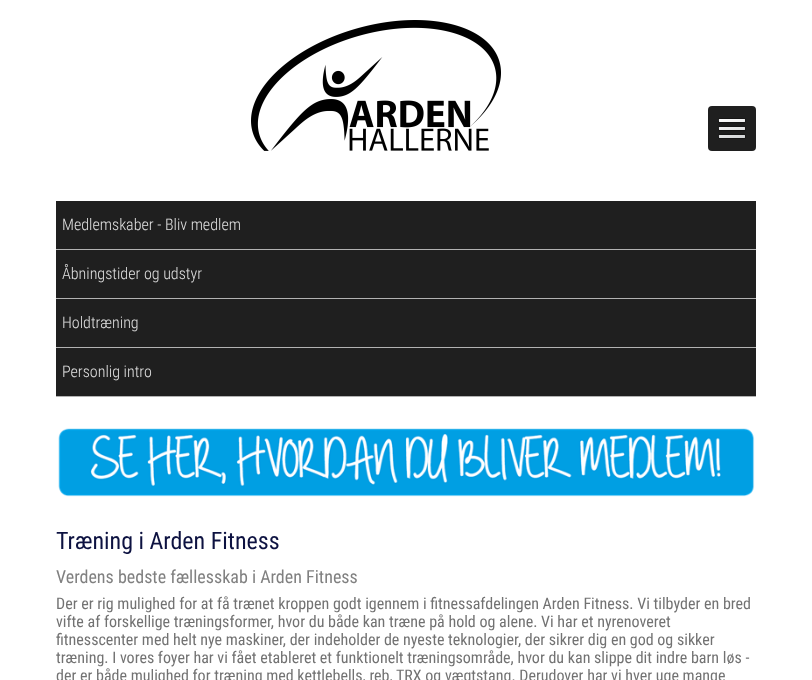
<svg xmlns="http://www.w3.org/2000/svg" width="812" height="680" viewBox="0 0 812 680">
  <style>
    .t1 { font: 300 16px Roboto Condensed; fill: #e1e1e1; }
    .t2 { font: 24px Roboto Condensed; fill: #0d1241; }
    .t3 { font: 18px Roboto Condensed; fill: #808080; }
    .t4 { font: 16px Roboto Condensed; fill: #727272; }
  </style>
  <rect width="100%" height="100%" fill="#fff"/>
  <image x="251" y="20" width="250" height="131" href="images/1.png"/>
  <rect x="708" y="106" width="48" height="45" rx="4" fill="#1f1f1f"/>
  <image x="718" y="118" width="28" height="21" href="images/2.png"/>
  <rect x="56" y="201" width="700" height="48" fill="#1f1f1f"/>
  <rect x="56" y="249" width="700" height="1" fill="#b2b2b2"/>
  <text x="62" y="230" class="t1">Medlemskaber - Bliv medlem</text>
  <rect x="56" y="250" width="700" height="48" fill="#1f1f1f"/>
  <rect x="56" y="298" width="700" height="1" fill="#b2b2b2"/>
  <text x="62" y="279" class="t1">Åbningstider og udstyr</text>
  <rect x="56" y="299" width="700" height="48" fill="#1f1f1f"/>
  <rect x="56" y="347" width="700" height="1" fill="#b2b2b2"/>
  <text x="62" y="328" class="t1">Holdtræning</text>
  <rect x="56" y="348" width="700" height="48" fill="#1f1f1f"/>
  <rect x="56" y="396" width="700" height="1" fill="#b2b2b2"/>
  <text x="62" y="377" class="t1">Personlig intro</text>
  <image x="58" y="428" width="697" height="69" href="images/3.png"/>
  <text x="56" y="549" class="t2">Træning i Arden Fitness</text>
  <text x="56" y="583" class="t3">Verdens bedste fællesskab i Arden Fitness</text>
  <text x="56" y="609" class="t4">Der er rig mulighed for at få trænet kroppen godt igennem i fitnessafdelingen Arden Fitness. Vi tilbyder en bred</text>
  <text x="56" y="627" class="t4">vifte af forskellige træningsformer, hvor du både kan træne på hold og alene. Vi har et nyrenoveret</text>
  <text x="56" y="645" class="t4">fitnesscenter med helt nye maskiner, der indeholder de nyeste teknologier, der sikrer dig en god og sikker</text>
  <text x="56" y="663" class="t4">træning. I vores foyer har vi fået etableret et funktionelt træningsområde, hvor du kan slippe dit indre barn løs -</text>
  <text x="56" y="681" class="t4">der er både mulighed for træning med kettlebells, reb, TRX og vægtstang. Derudover har vi hver uge mange</text>
</svg>
